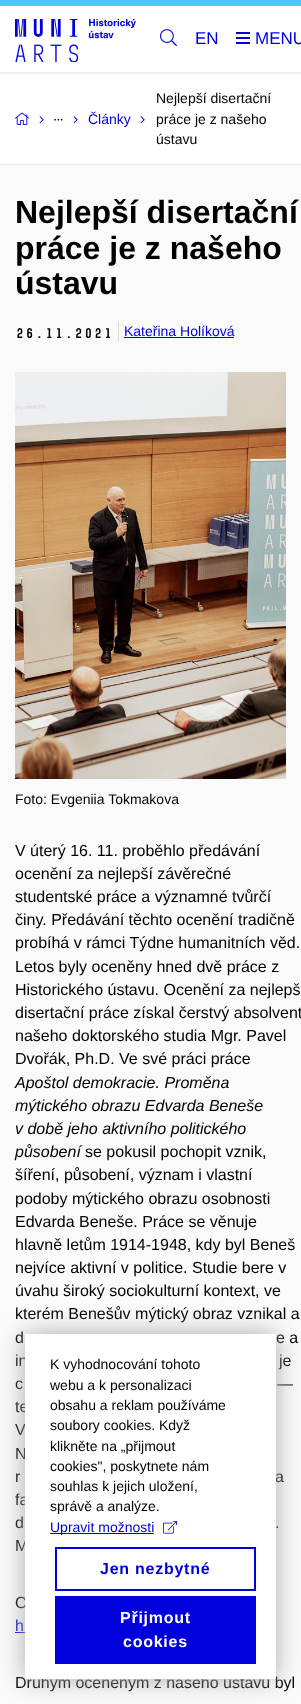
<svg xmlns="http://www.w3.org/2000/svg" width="301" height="1704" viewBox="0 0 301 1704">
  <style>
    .t1 { font: 17px Liberation Sans; fill: #0000dc; }
    .t2 { font: 14px Liberation Sans; fill: #0000dc; }
    .t3 { font: 14px Liberation Sans; fill: #000; }
    .t4 { font: bold 32px Liberation Sans; fill: #000; }
    .t5 { font: bold 14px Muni; fill: #000; }
    .t6 { font: 16px Liberation Sans; fill: #000; }
    .t7 { font: italic 16px Liberation Sans; fill: #000; }
    .t8 { font: 16px Liberation Sans; fill: #0000dc; }
    .t9 { font: bold 16px Liberation Sans; letter-spacing: 0.75px; fill: #0000dc; }
    .t10 { font: bold 16px Liberation Sans; letter-spacing: 0.75px; fill: #fff; }
  </style>
  <rect width="100%" height="100%" fill="#fafafa"/>
  <rect x="0" y="6" width="301" height="66" fill="#fff"/>
  <rect x="0" y="0" width="301" height="6" fill="#4bc8ff"/>
  <rect x="0" y="72" width="301" height="2" fill="#eee"/>
  <image x="15" y="19" width="121" height="43" href="images/1.png"/>
  <image x="160" y="29" width="17" height="18" href="images/2.png"/>
  <text x="195" y="44" class="t1">EN</text>
  <rect x="236" y="32" width="14" height="2" fill="#0000dc"/>
  <rect x="236" y="37" width="14" height="2" fill="#0000dc"/>
  <rect x="236" y="42" width="14" height="2" fill="#0000dc"/>
  <text x="255" y="44" class="t1">MENU</text>
  <rect x="0" y="74" width="301" height="90" fill="#fff"/>
  <rect x="0" y="164" width="301" height="1" fill="#ededed"/>
  <image x="15" y="112" width="14" height="13" href="images/3.png"/>
  <image x="39" y="116" width="5" height="8" href="images/4.png"/>
  <image x="54" y="118" width="9" height="3" href="images/5.png"/>
  <image x="73" y="116" width="5" height="8" href="images/4.png"/>
  <text x="88" y="124" class="t2">Články</text>
  <image x="140" y="116" width="5" height="8" href="images/4.png"/>
  <text x="156" y="103" class="t3">Nejlepší disertační</text>
  <text x="156" y="124" class="t3">práce je z našeho</text>
  <text x="156" y="144" class="t3">ústavu</text>
  <text x="15" y="223" class="t4">Nejlepší disertační</text>
  <text x="15" y="259" class="t4">práce je z našeho</text>
  <text x="15" y="294" class="t4">ústavu</text>
  <rect x="118" y="321" width="1" height="21" fill="#dcdcdc"/>
  <text x="15" y="338" class="t5">26.11.2021</text>
  <text x="124" y="336" class="t2">Kateřina Holíková</text>
  <rect x="124" y="337" width="110" height="1" fill="#0000dc"/>
  <image x="15" y="372" width="271" height="407" href="images/6.png"/>
  <text x="15" y="804" class="t3">Foto: Evgeniia Tokmakova</text>
  <text x="15" y="856" class="t6">V úterý 16. 11. proběhlo předávání</text>
  <text x="15" y="879" class="t6">ocenění za nejlepší závěrečné</text>
  <text x="15" y="902" class="t6">studentské práce a významné tvůrčí</text>
  <text x="15" y="925" class="t6">činy. Předávání těchto ocenění tradičně</text>
  <text x="15" y="948" class="t6">probíhá v rámci Týdne humanitních věd.</text>
  <text x="15" y="972" class="t6">Letos byly oceněny hned dvě práce z</text>
  <text x="15" y="995" class="t6">Historického ústavu. Ocenění za nejlepš</text>
  <text x="15" y="1018" class="t6">disertační práce získal čerstvý absolvent</text>
  <text x="15" y="1041" class="t6">našeho doktorského studia Mgr. Pavel</text>
  <text x="15" y="1064" class="t6">Dvořák, Ph.D. Ve své práci práce</text>
  <text x="15" y="1088" class="t7">Apoštol demokracie. Proměna</text>
  <text x="15" y="1111" class="t7">mýtického obrazu Edvarda Beneše</text>
  <text x="15" y="1134" class="t7">v době jeho aktivního politického</text>
  <text x="15" y="1157" class="t7">působení</text>
  <text x="85" y="1157" class="t6">se pokusil pochopit vznik,</text>
  <text x="15" y="1180" class="t6">šíření, působení, význam i vlastní</text>
  <text x="15" y="1204" class="t6">podoby mýtického obrazu osobnosti</text>
  <text x="15" y="1227" class="t6">Edvarda Beneše. Práce se věnuje</text>
  <text x="15" y="1250" class="t6">hlavně letům 1914-1948, kdy byl Beneš</text>
  <text x="15" y="1273" class="t6">nejvíce aktivní v politice. Studie bere v</text>
  <text x="15" y="1296" class="t6">úvahu široký sociokulturní kontext, ve</text>
  <text x="15" y="1319" class="t6">kterém Benešův mýtický obraz vznikal a</text>
  <text x="15" y="1343" class="t6">d</text>
  <text x="276" y="1343" class="t6">e a</text>
  <text x="15" y="1366" class="t6">in</text>
  <text x="279" y="1366" class="t6">je</text>
  <text x="15" y="1389" class="t6">c</text>
  <text x="277" y="1389" class="t6">—</text>
  <text x="15" y="1412" class="t6">te</text>
  <text x="15" y="1435" class="t6">V</text>
  <text x="15" y="1459" class="t6">N</text>
  <text x="15" y="1482" class="t6">r</text>
  <text x="275" y="1482" class="t6">a</text>
  <text x="15" y="1505" class="t6">fa</text>
  <text x="15" y="1528" class="t6">d</text>
  <text x="275" y="1528" class="t6">.</text>
  <text x="15" y="1551" class="t6">M</text>
  <text x="15" y="1608" class="t6">O</text>
  <text x="15" y="1631" class="t8">h</text>
  <rect x="15" y="1632" width="10" height="1" fill="#0000dc"/>
  <text x="15" y="1688" class="t6">Druhým oceněným z našeho ústavu byl</text>
  <rect x="25" y="1334" width="251" height="345" fill="#aaa" filter="blur(12.5px)"/>
  <rect x="25" y="1334" width="251" height="345" fill="#fff"/>
  <text x="50" y="1369" class="t3">K vyhodnocování tohoto</text>
  <text x="50" y="1390" class="t3">webu a k personalizaci</text>
  <text x="50" y="1410" class="t3">obsahu a reklam používáme</text>
  <text x="50" y="1430" class="t3">soubory cookies. Když</text>
  <text x="50" y="1451" class="t3">klikněte na „přijmout</text>
  <text x="50" y="1471" class="t3">cookies", poskytnete nám</text>
  <text x="50" y="1491" class="t3">souhlas k jejich uložení,</text>
  <text x="50" y="1511" class="t3">správě a analýze.</text>
  <rect x="50" y="1533" width="104" height="1" fill="#0000dc"/>
  <text x="50" y="1532" class="t2">Upravit možnosti</text>
  <image x="163" y="1521" width="14" height="13" href="images/7.png"/>
  <rect x="56" y="1548" width="199" height="42" fill="none" stroke="#0000dc" stroke-width="2"/>
  <text x="100" y="1574" class="t9">Jen nezbytné</text>
  <rect x="55" y="1596" width="201" height="68" fill="#0000dc"/>
  <text x="120" y="1623" class="t10">Přijmout</text>
  <text x="123" y="1647" class="t10">cookies</text>
</svg>
